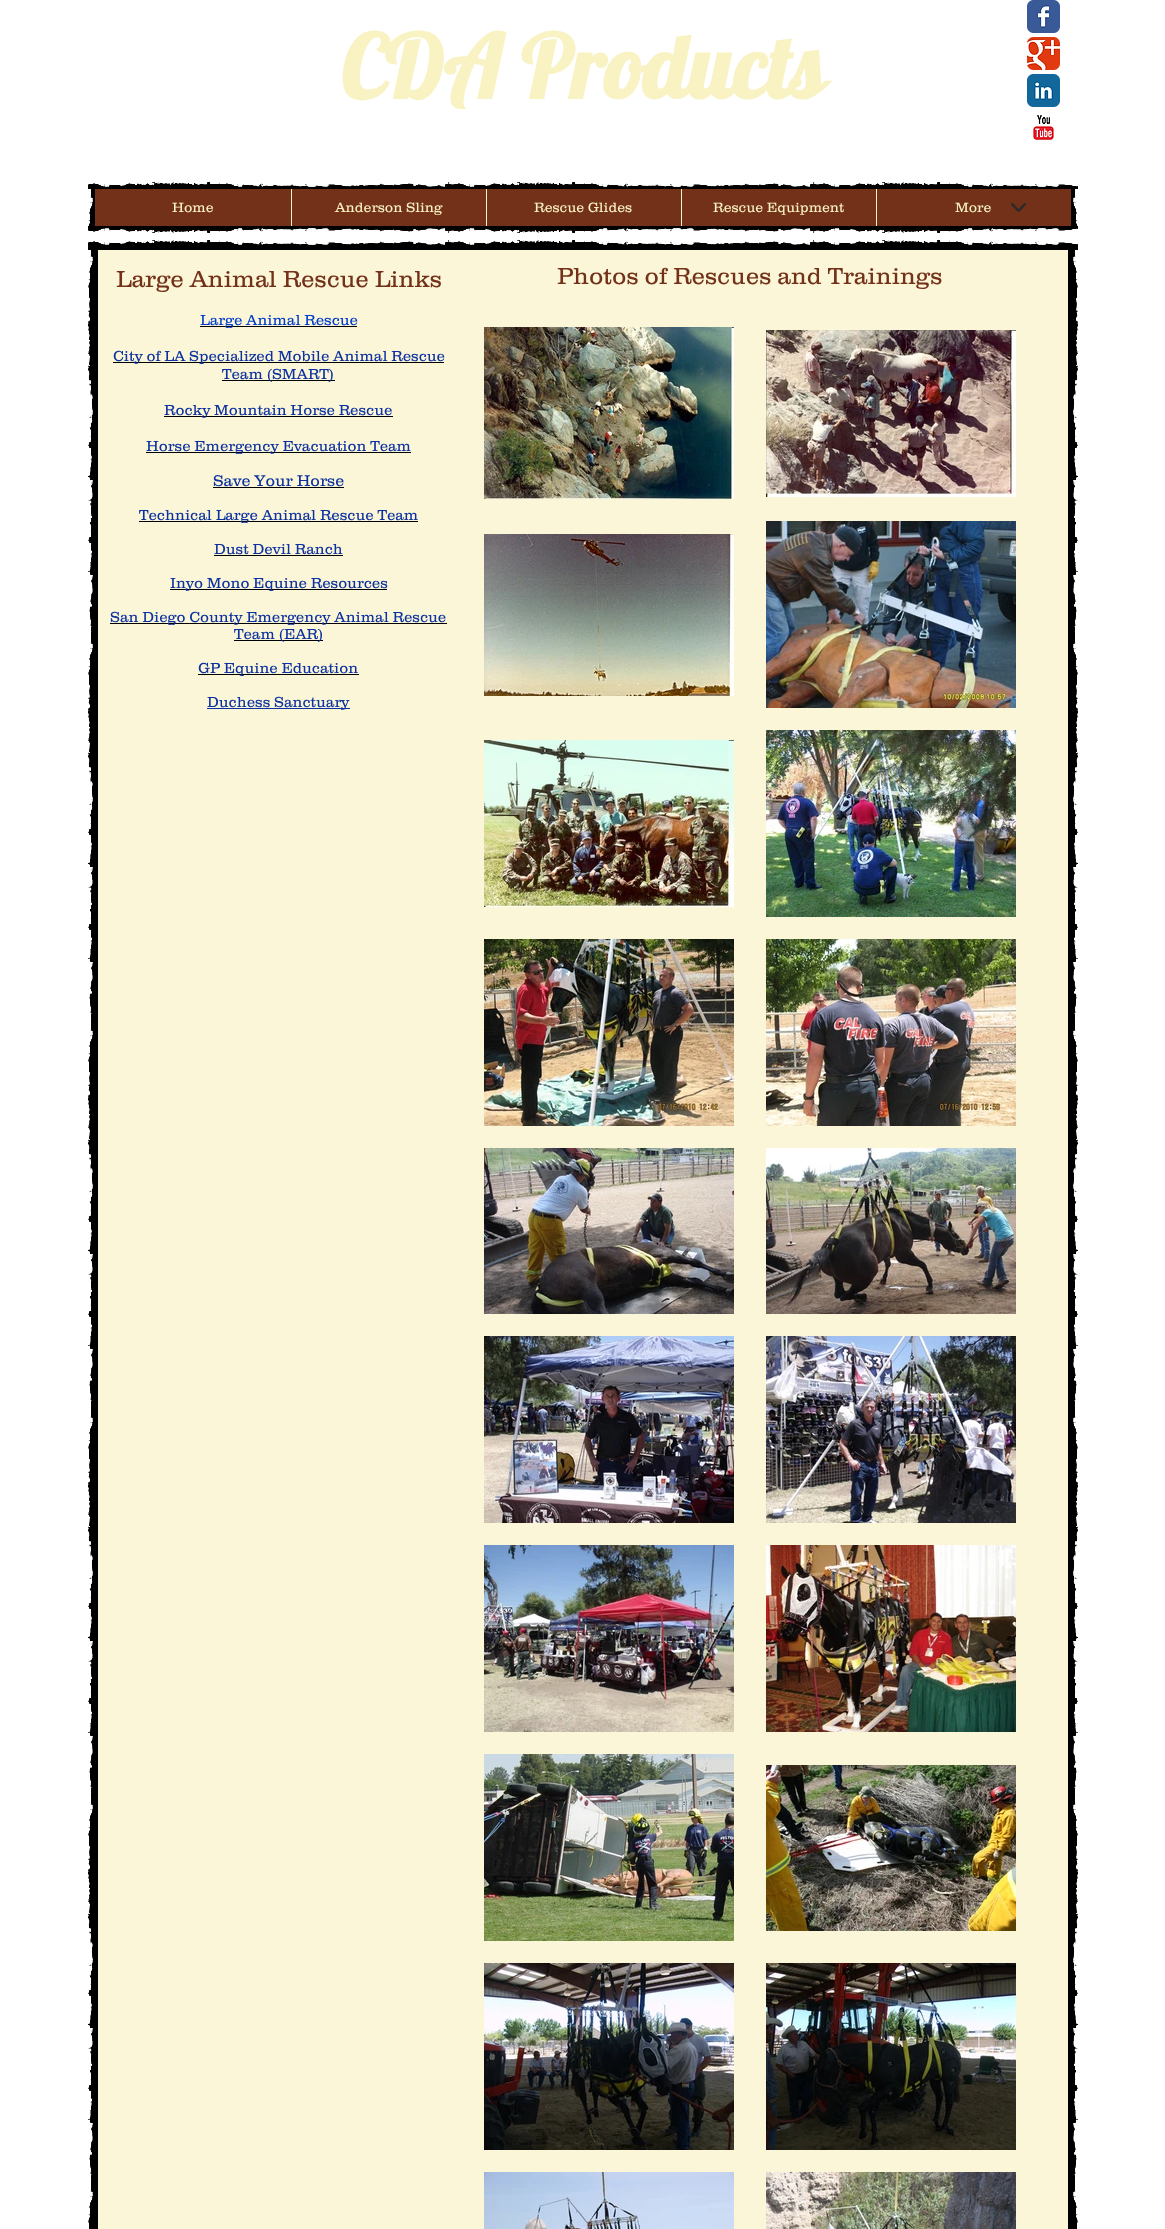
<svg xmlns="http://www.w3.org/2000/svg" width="1165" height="2229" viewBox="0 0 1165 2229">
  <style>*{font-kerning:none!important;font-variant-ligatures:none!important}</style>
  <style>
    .t1 { font: bold 88px Lobster; fill: #f9f2c3; }
    .t2 { font: 300 14px 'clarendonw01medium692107'; fill: #f9f2c3; }
    .t3 { font: 300 24px 'clarendonw01medium692107'; fill: #723118; }
    .t4 { font: 300 15px 'clarendonw01medium692107'; fill: #003ccc; }
    .t5 { font: 300 15px 'clarendonw01medium692107'; fill: #0c31a0; }
    .t6 { font: 300 16px 'clarendonw01medium692107'; fill: #0c31a0; }
  </style>
  <rect width="100%" height="100%" fill="#fff"/>
  <text x="341" y="99" class="t1">CDA Products</text>
  <image x="1027" y="0" width="33" height="33" href="images/1.png"/>
  <image x="1027" y="37" width="33" height="33" href="images/2.png"/>
  <image x="1027" y="74" width="33" height="33" href="images/3.png"/>
  <image x="1033" y="115" width="21" height="25" href="images/4.png"/>
  <image x="88" y="182" width="990" height="7" href="images/5.png"/>
  <image x="88" y="189" width="7" height="37" href="images/6.png"/>
  <rect x="95" y="189" width="976" height="37" fill="#723118"/>
  <text x="172" y="212" class="t2">Home</text>
  <rect x="291" y="189" width="1" height="37" fill="#f9f2c3"/>
  <text x="335" y="212" class="t2">Anderson Sling</text>
  <rect x="486" y="189" width="1" height="37" fill="#f9f2c3"/>
  <text x="534" y="212" class="t2">Rescue Glides</text>
  <rect x="681" y="189" width="1" height="37" fill="#f9f2c3"/>
  <text x="713" y="212" class="t2">Rescue Equipment</text>
  <rect x="876" y="189" width="1" height="37" fill="#f9f2c3"/>
  <text x="955" y="212" class="t2">More</text>
  <image x="1071" y="189" width="7" height="37" href="images/7.png"/>
  <image x="88" y="226" width="990" height="7" href="images/8.png"/>
  <image x="1011" y="203" width="15" height="9" href="images/9.png"/>
  <rect x="98" y="250" width="970" height="1979" fill="#fbf6d7"/>
  <image x="88" y="240" width="990" height="10" href="images/10.png"/>
  <image x="88" y="250" width="10" height="1979" href="images/11.png"/>
  <image x="1068" y="250" width="10" height="1979" href="images/12.png"/>
  <text x="116" y="287" class="t3">Large Animal Rescue Links</text>
  <rect x="200" y="326" width="157" height="1" fill="#000"/>
  <text x="200" y="325" class="t4">Large Animal Rescue</text>
  <rect x="113" y="362" width="331" height="1" fill="#000"/>
  <text x="113" y="361" class="t5">City of LA Specialized Mobile Animal Rescue</text>
  <rect x="222" y="380" width="113" height="1" fill="#000"/>
  <text x="222" y="379" class="t5">Team (SMART)</text>
  <rect x="164" y="416" width="229" height="1" fill="#000"/>
  <text x="164" y="415" class="t5">Rocky Mountain Horse Rescue</text>
  <rect x="146" y="452" width="265" height="1" fill="#000"/>
  <text x="146" y="451" class="t5">Horse Emergency Evacuation Team</text>
  <text x="213" y="486" class="t6">Save Your Horse</text>
  <rect x="213" y="487" width="131" height="1" fill="#000"/>
  <rect x="139" y="521" width="279" height="1" fill="#000"/>
  <text x="139" y="520" class="t5">Technical Large Animal Rescue Team</text>
  <text x="214" y="554" class="t5">Dust Devil Ranch</text>
  <rect x="214" y="555" width="129" height="1" fill="#000"/>
  <rect x="170" y="589" width="217" height="1" fill="#000"/>
  <text x="170" y="588" class="t5">Inyo Mono Equine Resources</text>
  <rect x="110" y="623" width="337" height="1" fill="#000"/>
  <text x="110" y="622" class="t5">San Diego County Emergency Animal Rescue</text>
  <rect x="234" y="640" width="89" height="1" fill="#000"/>
  <text x="234" y="639" class="t5">Team (EAR)</text>
  <rect x="198" y="674" width="161" height="1" fill="#000"/>
  <text x="198" y="673" class="t5">GP Equine Education</text>
  <rect x="207" y="708" width="143" height="1" fill="#0c31a0"/>
  <text x="207" y="707" class="t5">Duchess Sanctuary</text>
  <text x="557" y="284" class="t3">Photos of Rescues and Trainings</text>
  <image x="484" y="327" width="250" height="172" href="images/13.png"/>
  <image x="766" y="330" width="250" height="167" href="images/14.png"/>
  <image x="484" y="534" width="250" height="162" href="images/15.png"/>
  <image x="766" y="521" width="250" height="187" href="images/16.png"/>
  <image x="484" y="740" width="250" height="167" href="images/17.png"/>
  <image x="766" y="730" width="250" height="187" href="images/18.png"/>
  <image x="484" y="939" width="250" height="187" href="images/19.png"/>
  <image x="766" y="939" width="250" height="187" href="images/20.png"/>
  <image x="484" y="1148" width="250" height="166" href="images/21.png"/>
  <image x="766" y="1148" width="250" height="166" href="images/22.png"/>
  <image x="484" y="1336" width="250" height="187" href="images/23.png"/>
  <image x="766" y="1336" width="250" height="187" href="images/24.png"/>
  <image x="484" y="1545" width="250" height="187" href="images/25.png"/>
  <image x="766" y="1545" width="250" height="187" href="images/26.png"/>
  <image x="484" y="1754" width="250" height="187" href="images/27.png"/>
  <image x="766" y="1765" width="250" height="166" href="images/28.png"/>
  <image x="484" y="1963" width="250" height="187" href="images/29.png"/>
  <image x="766" y="1963" width="250" height="187" href="images/30.png"/>
  <image x="484" y="2172" width="250" height="57" href="images/31.png"/>
  <image x="766" y="2172" width="250" height="57" href="images/32.png"/>
</svg>
